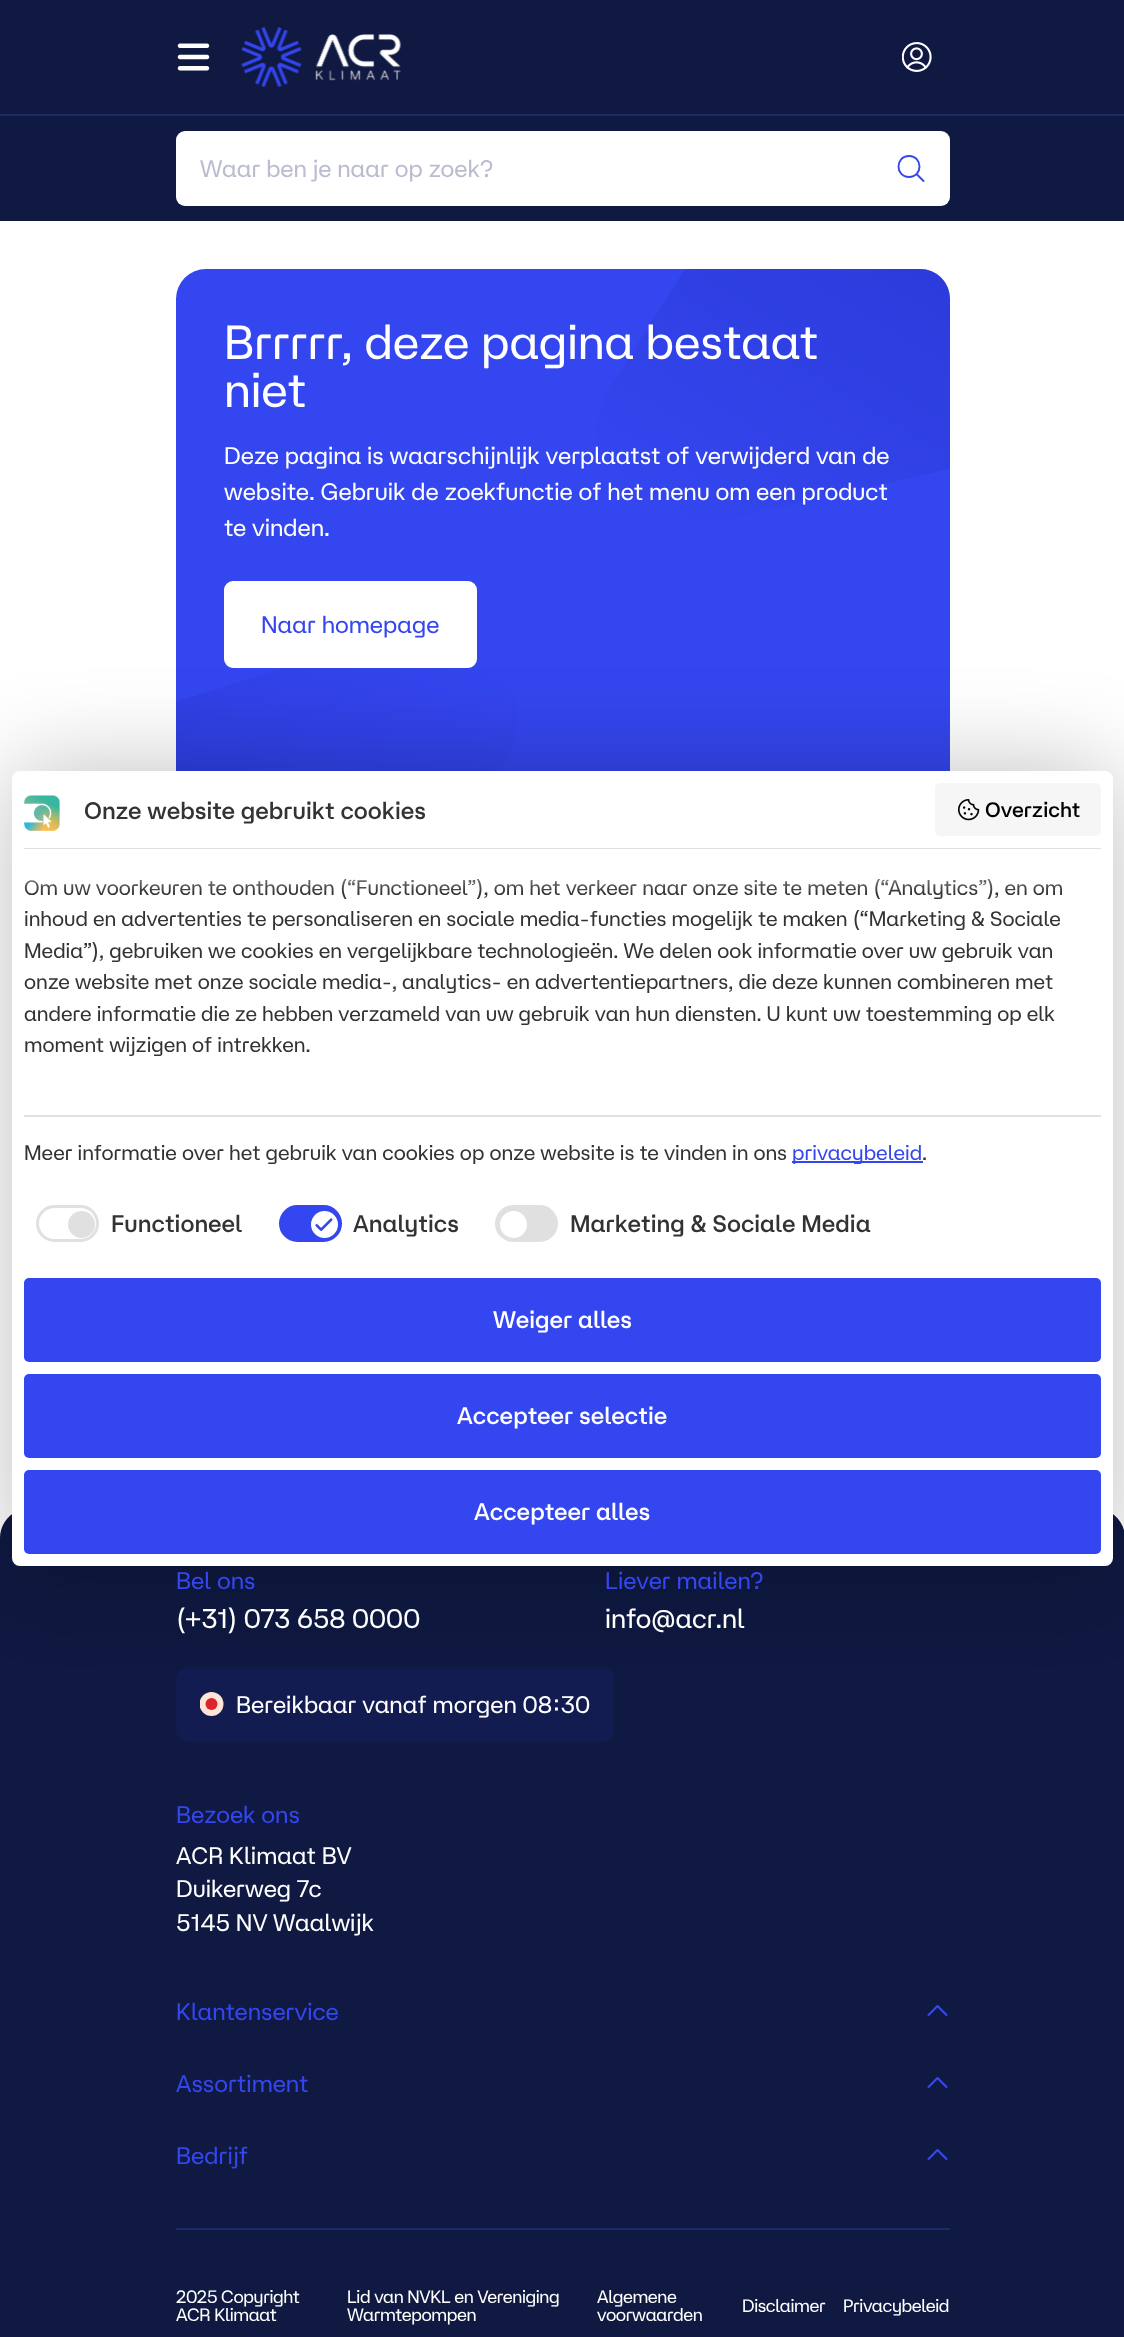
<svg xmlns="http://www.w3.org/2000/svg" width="1124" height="2337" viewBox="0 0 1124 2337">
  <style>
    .t1 { font: 24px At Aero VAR; fill: #babccf; }
    .t2 { font: 48px At Aero VAR; fill: #fff; }
    .t3 { font: 24px At Aero VAR; fill: #fff; }
    .t4 { font: 24px At Aero VAR; fill: #3446ef; }
    .t5 { font: 500 24px At Aero VAR; fill: #333; }
    .t6 { font: 500 21px At Aero VAR; fill: #000; }
    .t7 { font: 21px At Aero VAR; fill: #333; }
    .t8 { font: 21px At Aero VAR; fill: #3446ef; }
    .t9 { font: 500 24px At Aero VAR; fill: #fff; }
    .t10 { font: 27px At Aero VAR; fill: #fff; }
    .t11 { font: 18px At Aero VAR; letter-spacing: -0.4px; fill: #fff; }
  </style>
  <defs>
    <linearGradient id="g1" gradientUnits="userSpaceOnUse" x1="614" y1="487" x2="929" y2="-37"><stop offset="0" stop-color="#2634cd" stop-opacity="0"/><stop offset="1" stop-color="#2634cd"/></linearGradient>
    <linearGradient id="g2" gradientUnits="userSpaceOnUse" x1="496" y1="659" x2="228" y2="1208"><stop offset="0" stop-color="#2634cd" stop-opacity="0"/><stop offset="1" stop-color="#2634cd"/></linearGradient>
    <clipPath id="clip1"><rect x="200" y="1692" width="24" height="24"/></clipPath>
    <linearGradient id="g3" gradientUnits="userSpaceOnUse" x1="563" y1="893" x2="563" y2="848"><stop offset="0" stop-color="#fff" stop-opacity="0"/><stop offset="1" stop-color="#fff"/></linearGradient>
  </defs>
  <rect width="100%" height="100%" fill="#fff"/>
  <rect x="0" y="0" width="1124" height="114" fill="#0f1941"/>
  <image x="177" y="43" width="33" height="28" href="images/1.png"/>
  <image x="241" y="27" width="160" height="60" href="images/2.png"/>
  <image x="902" y="42" width="30" height="30" href="images/3.png"/>
  <rect x="0" y="116" width="1124" height="105" fill="#0f1941"/>
  <rect x="0" y="114" width="1124" height="2" fill="#1d2a65"/>
  <rect x="176" y="131" width="774" height="75" rx="9" fill="#fff"/>
  <text x="200" y="177" class="t1">Waar ben je naar op zoek?</text>
  <path d="M909 177C923 177 923 156 909 156C895 156 895 177 909 177ZM923.5 181L917 174.5" fill="none" stroke="#3446ef" stroke-width="1.9" stroke-linecap="round" stroke-linejoin="round"/>
  <rect x="176" y="269" width="774" height="627" rx="30" fill="#3446ef"/>
  <path d="M950 469V299C950 282 937 269 920 269H685L611 386C592 416 593 450 608 477L620 495C641 518 673 531 708 523Z" fill="url(#g1)"/>
  <path d="M436 896H206C189 896 176 883 176 866V702L399 631C476 607 544 688 507 760Z" fill="url(#g2)"/>
  <text x="224" y="359" class="t2">Brrrrr, deze pagina bestaat</text>
  <text x="224" y="407" class="t2">niet</text>
  <text x="224" y="464" class="t3">Deze pagina is waarschijnlijk verplaatst of verwijderd van de</text>
  <text x="224" y="500" class="t3">website. Gebruik de zoekfunctie of het menu om een product</text>
  <text x="224" y="536" class="t3">te vinden.</text>
  <rect x="225" y="582" width="251" height="85" rx="8" fill="#fff" stroke="#fff" stroke-width="2"/>
  <text x="261" y="633" class="t4">Naar homepage</text>
  <path d="M30 1508H1095C1111.5 1508 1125 1521.5 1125 1538V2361H0V1538C0 1521.5 13.5 1508 30 1508Z" fill="#0f1941"/>
  <rect x="176" y="1667" width="438" height="75" rx="12" fill="#121c51"/>
  <g clip-path="url(#clip1)">
    <circle cx="211.5" cy="1704" r="12" fill="#ffe5d6"/>
  </g>
  <circle cx="211.5" cy="1704" r="6" fill="#db242d"/>
  <rect x="12" y="771" width="1101" height="795" rx="8" fill="#00000040" filter="blur(48px)"/>
  <rect x="12" y="771" width="1101" height="795" rx="8" fill="#fff"/>
  <image x="24" y="795" width="36" height="36" href="images/4.png"/>
  <text x="84" y="819" class="t5">Onze website gebruikt cookies</text>
  <rect x="935" y="783" width="166" height="53" rx="5" fill="#f6f6f6"/>
  <image x="958" y="799" width="22" height="22" href="images/5.png"/>
  <text x="985" y="817" class="t6">Overzicht</text>
  <rect x="24" y="848" width="1077" height="2" fill="#e0e0e0"/>
  <rect x="24" y="1115" width="1077" height="2" fill="#e0e0e0"/>
  <text x="24" y="895" class="t7">Om uw voorkeuren te onthouden (“Functioneel”), om het verkeer naar onze site te meten (“Analytics”), en om</text>
  <rect x="24" y="849" width="1077" height="43" fill="url(#g3)"/>
  <text x="24" y="926" class="t7">inhoud en advertenties te personaliseren en sociale media-functies mogelijk te maken (“Marketing &amp; Sociale</text>
  <text x="24" y="958" class="t7">Media”), gebruiken we cookies en vergelijkbare technologieën. We delen ook informatie over uw gebruik van</text>
  <text x="24" y="989" class="t7">onze website met onze sociale media-, analytics- en advertentiepartners, die deze kunnen combineren met</text>
  <text x="24" y="1021" class="t7">andere informatie die ze hebben verzameld van uw gebruik van hun diensten. U kunt uw toestemming op elk</text>
  <text x="24" y="1052" class="t7">moment wijzigen of intrekken.</text>
  <text x="24" y="1160" class="t7">Meer informatie over het gebruik van cookies op onze website is te vinden in ons</text>
  <rect x="792" y="1161" width="131" height="2" fill="#3446ef"/>
  <text x="792" y="1160" class="t8">privacybeleid</text>
  <text x="922" y="1160" class="t7">.</text>
  <rect x="37.5" y="1206.5" width="60" height="34" rx="17" fill="none" stroke="#e0e0e0" stroke-width="3"/>
  <circle cx="81.5" cy="1224.5" r="13.5" fill="#e0e0e0"/>
  <text x="111" y="1232" class="t5">Functioneel</text>
  <rect x="280.5" y="1206.5" width="60" height="34" rx="17" fill="#3446ef" stroke="#3446ef" stroke-width="3"/>
  <circle cx="324.5" cy="1224.5" r="13.5" fill="#fff"/>
  <image x="315" y="1218" width="18" height="13" href="images/6.png"/>
  <text x="353" y="1232" class="t5">Analytics</text>
  <rect x="496.5" y="1206.5" width="60" height="34" rx="17" fill="#e0e0e0" stroke="#e0e0e0" stroke-width="3"/>
  <circle cx="513.5" cy="1224.5" r="13.5" fill="#fff"/>
  <text x="570" y="1232" class="t5">Marketing &amp; Sociale Media</text>
  <rect x="24" y="1278" width="1077" height="84" rx="5" fill="#3446ef"/>
  <text x="493" y="1328" class="t9">Weiger alles</text>
  <rect x="24" y="1374" width="1077" height="84" rx="5" fill="#3446ef"/>
  <text x="457" y="1424" class="t9">Accepteer selectie</text>
  <rect x="24" y="1470" width="1077" height="84" rx="5" fill="#3446ef"/>
  <text x="474" y="1520" class="t9">Accepteer alles</text>
  <text x="176" y="1589" class="t4">Bel ons</text>
  <text x="176" y="1628" class="t10">(+31) 073 658 0000</text>
  <text x="605" y="1589" class="t4">Liever mailen?</text>
  <text x="605" y="1628" class="t10">info@acr.nl</text>
  <text x="236" y="1713" class="t3">Bereikbaar vanaf morgen 08:30</text>
  <text x="176" y="1823" class="t4">Bezoek ons</text>
  <text x="176" y="1864" class="t3">ACR Klimaat BV</text>
  <text x="176" y="1897" class="t3">Duikerweg 7c</text>
  <text x="176" y="1931" class="t3">5145 NV Waalwijk</text>
  <text x="176" y="2020" class="t4">Klantenservice</text>
  <path d="M946.5 2015L939.5 2008C937 2005.5 938 2005.5 935.5 2008L928.5 2015" fill="none" stroke="#3446ef" stroke-width="2.2" stroke-linecap="round" stroke-linejoin="round"/>
  <text x="176" y="2092" class="t4">Assortiment</text>
  <path d="M946.5 2087L939.5 2080C937 2077.5 938 2077.5 935.5 2080L928.5 2087" fill="none" stroke="#3446ef" stroke-width="2.2" stroke-linecap="round" stroke-linejoin="round"/>
  <text x="176" y="2164" class="t4">Bedrijf</text>
  <path d="M946.5 2159L939.5 2152C937 2149.5 938 2149.5 935.5 2152L928.5 2159" fill="none" stroke="#3446ef" stroke-width="2.2" stroke-linecap="round" stroke-linejoin="round"/>
  <rect x="176" y="2228" width="774" height="2" fill="#1d2a65"/>
  <text x="176" y="2303" class="t11">2025 Copyright</text>
  <text x="176" y="2321" class="t11">ACR Klimaat</text>
  <text x="347" y="2303" class="t11">Lid van NVKL en Vereniging</text>
  <text x="347" y="2321" class="t11">Warmtepompen</text>
  <text x="597" y="2303" class="t11">Algemene</text>
  <text x="597" y="2321" class="t11">voorwaarden</text>
  <text x="742" y="2312" class="t11">Disclaimer</text>
  <text x="843" y="2312" class="t11">Privacybeleid</text>
</svg>
